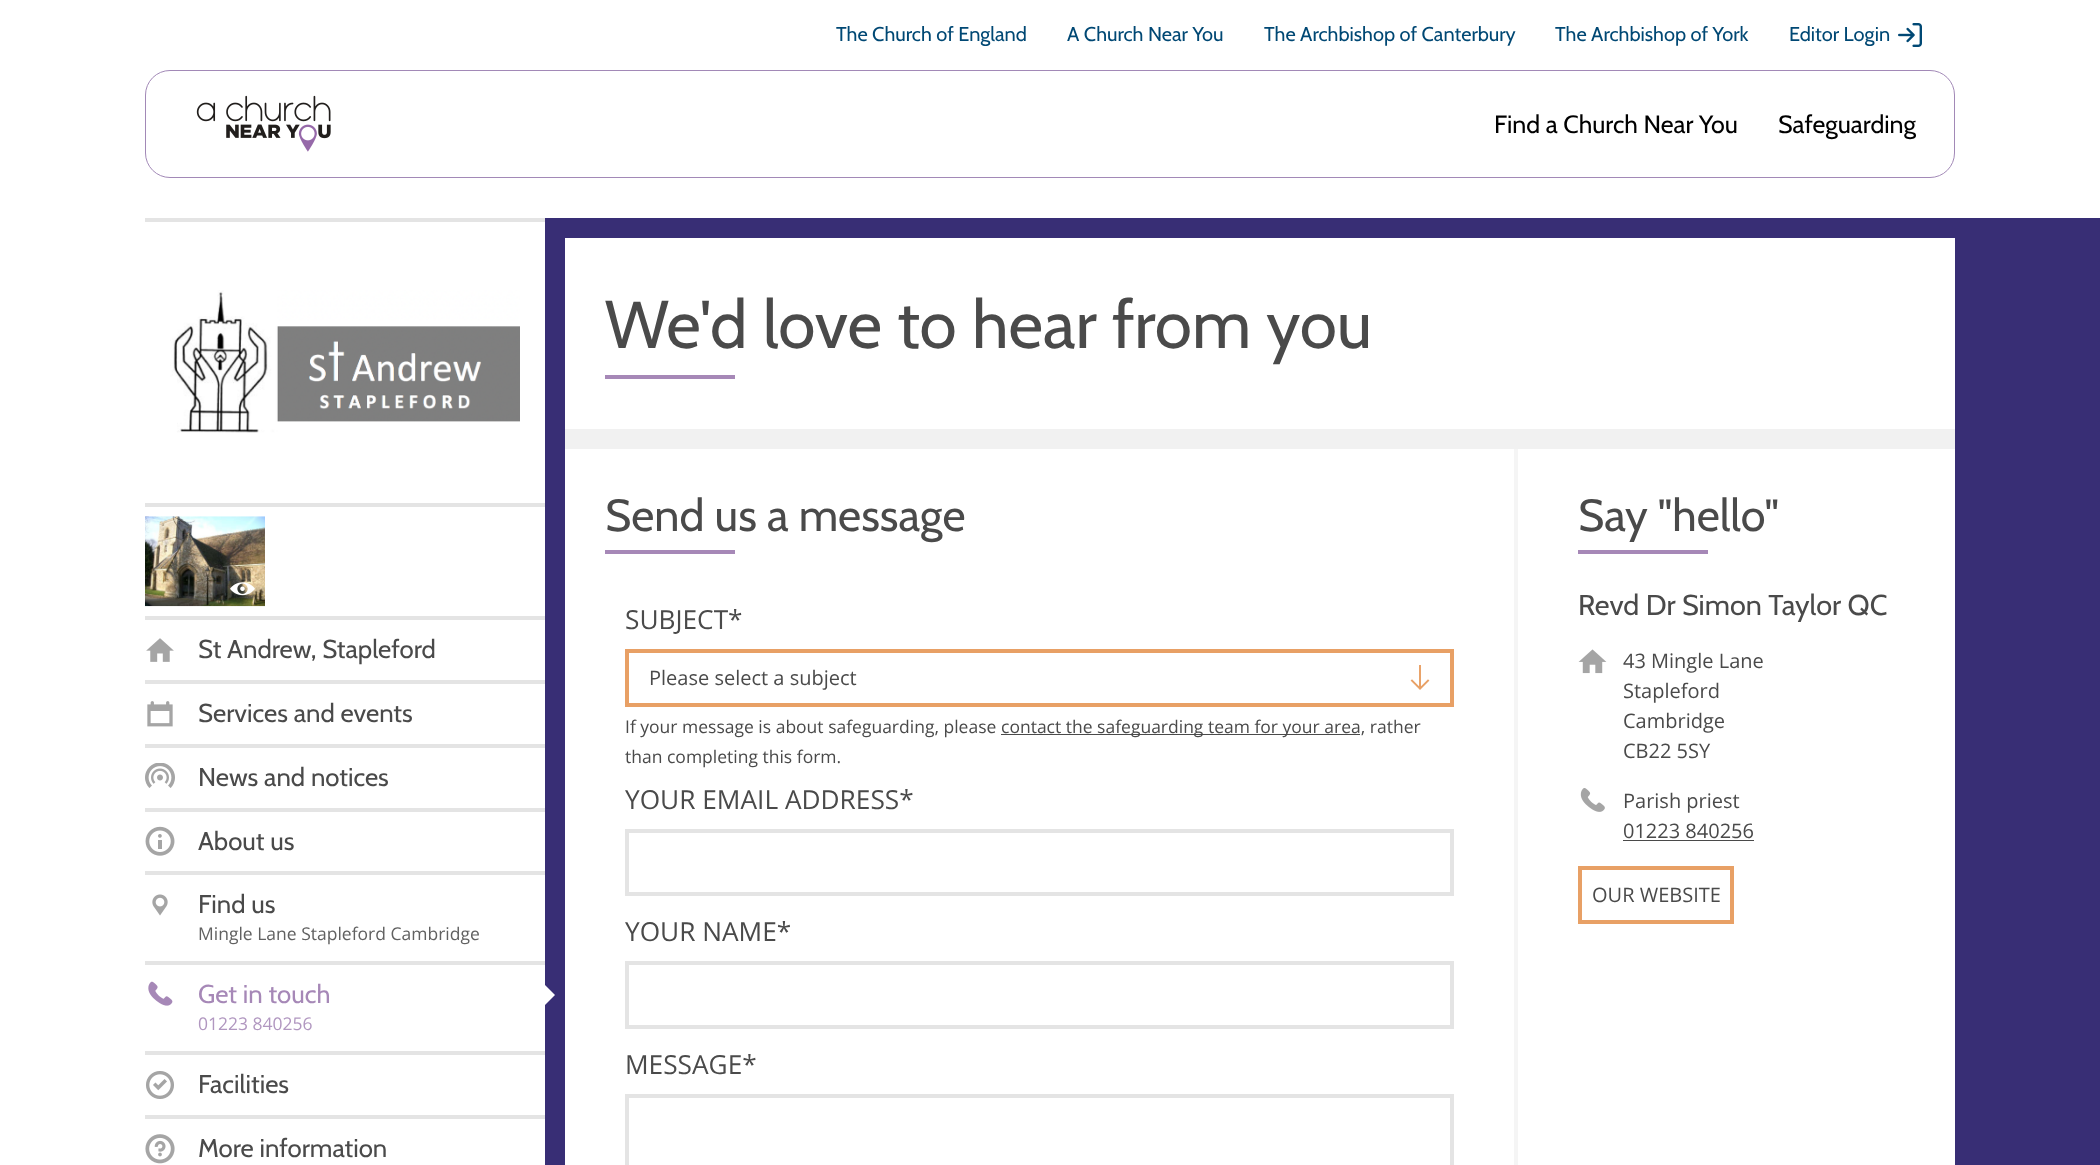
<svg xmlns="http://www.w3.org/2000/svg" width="2100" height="1165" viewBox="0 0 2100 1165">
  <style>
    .t1 { font: 20px Cabin; fill: #004874; }
    .t2 { font: 25px Cabin; fill: #000; }
    .t3 { font: 25.75px Cabin; fill: #4a4a4a; }
    .t4 { font: 17.5px Open Sans; fill: #616161; }
    .t5 { font: 25.75px Cabin; fill: #a688b7; }
    .t6 { font: 17.5px Open Sans; fill: #b197c0; }
    .t7 { font: 67.5px Cabin; fill: #4a4a4a; }
    .t8 { font: 45px Cabin; fill: #4a4a4a; }
    .t9 { font: 26.25px Open Sans; fill: #4a4a4a; }
    .t10 { font: 20px Open Sans; fill: #4a4a4a; }
    .t11 { font: 17.5px Open Sans; fill: #4a4a4a; }
    .t12 { font: 28.75px Cabin; fill: #4a4a4a; }
  </style>
  <rect width="100%" height="100%" fill="#fff"/>
  <text x="836" y="41" class="t1">The Church of England</text>
  <text x="1067" y="41" class="t1">A Church Near You</text>
  <text x="1264" y="41" class="t1">The Archbishop of Canterbury</text>
  <text x="1555" y="41" class="t1">The Archbishop of York</text>
  <text x="1789" y="41" class="t1">Editor Login</text>
  <image x="1898" y="23" width="24" height="24" href="images/1.png"/>
  <rect x="145.5" y="70.5" width="1809" height="107" rx="24.5" fill="none" stroke="#a289b7"/>
  <image x="196" y="95" width="135" height="57" href="images/2.png"/>
  <text x="1494" y="133" class="t2">Find a Church Near You</text>
  <text x="1778" y="133" class="t2">Safeguarding</text>
  <rect x="545" y="218" width="1555" height="947" fill="#382e75"/>
  <rect x="145" y="218" width="400" height="4" fill="#e4e4e4"/>
  <image x="170" y="290" width="350" height="143" href="images/3.png"/>
  <rect x="145" y="503" width="400" height="4" fill="#e4e4e4"/>
  <rect x="145" y="616" width="400" height="4" fill="#e4e4e4"/>
  <image x="145" y="516" width="120" height="91" href="images/4.png"/>
  <image x="230" y="582" width="25" height="14" href="images/5.png"/>
  <image x="146" y="638" width="28" height="24" href="images/6.png"/>
  <text x="198" y="658" class="t3">St Andrew, Stapleford</text>
  <rect x="145" y="680" width="400" height="4" fill="#e4e4e4"/>
  <image x="147" y="701" width="26" height="26" href="images/7.png"/>
  <text x="198" y="722" class="t3">Services and events</text>
  <rect x="145" y="744" width="400" height="4" fill="#e4e4e4"/>
  <image x="145" y="763" width="30" height="25" href="images/8.png"/>
  <text x="198" y="786" class="t3">News and notices</text>
  <rect x="145" y="808" width="400" height="4" fill="#e4e4e4"/>
  <image x="145" y="826" width="30" height="30" href="images/9.png"/>
  <text x="198" y="850" class="t3">About us</text>
  <rect x="145" y="871" width="400" height="4" fill="#e4e4e4"/>
  <image x="152" y="894" width="16" height="22" href="images/10.png"/>
  <text x="198" y="913" class="t3">Find us</text>
  <text x="198" y="940" class="t4">Mingle Lane Stapleford Cambridge</text>
  <rect x="145" y="961" width="400" height="4" fill="#e4e4e4"/>
  <image x="148" y="981" width="25" height="25" href="images/11.png"/>
  <text x="198" y="1003" class="t5">Get in touch</text>
  <text x="198" y="1030" class="t6">01223 840256</text>
  <path d="M545 1005V985L555 995Z" fill="#fff"/>
  <rect x="145" y="1051" width="400" height="4" fill="#e4e4e4"/>
  <image x="146" y="1071" width="28" height="28" href="images/12.png"/>
  <text x="198" y="1093" class="t3">Facilities</text>
  <rect x="145" y="1115" width="400" height="4" fill="#e4e4e4"/>
  <image x="145" y="1134" width="30" height="30" href="images/13.png"/>
  <text x="198" y="1157" class="t3">More information</text>
  <rect x="565" y="238" width="1390" height="191" fill="#fff"/>
  <text x="605" y="348" class="t7">We'd love to hear from you</text>
  <rect x="605" y="375" width="130" height="4" fill="#a688b7"/>
  <rect x="565" y="449" width="1390" height="716" fill="#fff"/>
  <rect x="565" y="429" width="1390" height="20" fill="#f1f1f1"/>
  <rect x="1514" y="449" width="4" height="716" fill="#f5f5f5"/>
  <text x="605" y="531" class="t8">Send us a message</text>
  <rect x="605" y="550" width="130" height="4" fill="#a688b7"/>
  <text x="625" y="629" class="t9">SUBJECT*</text>
  <rect x="625" y="649" width="829" height="4" fill="#e8a065"/>
  <rect x="625" y="703" width="764" height="4" fill="#e8a065"/>
  <rect x="625" y="649" width="4" height="57" fill="#e8a065"/>
  <text x="649" y="685" class="t10">Please select a subject</text>
  <rect x="1450" y="649" width="4" height="57" fill="#e8a065"/>
  <rect x="1389" y="703" width="65" height="4" fill="#e8a065"/>
  <image x="1410" y="665" width="20" height="25" href="images/14.png"/>
  <text x="625" y="733" class="t11">If your message is about safeguarding, please</text>
  <rect x="1001" y="734" width="359" height="1" fill="#4a4a4a"/>
  <text x="1001" y="733" class="t11">contact the safeguarding team for your area, rather</text>
  <text x="625" y="763" class="t11">than completing this form.</text>
  <text x="625" y="809" class="t9">YOUR EMAIL ADDRESS*</text>
  <rect x="627" y="831" width="825" height="63" fill="none" stroke="#e4e4e4" stroke-width="4"/>
  <text x="625" y="941" class="t9">YOUR NAME*</text>
  <rect x="627" y="963" width="825" height="64" fill="none" stroke="#e4e4e4" stroke-width="4"/>
  <text x="625" y="1074" class="t9">MESSAGE*</text>
  <rect x="627" y="1096" width="825" height="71" fill="none" stroke="#e4e4e4" stroke-width="4"/>
  <text x="1578" y="531" class="t8">Say "hello"</text>
  <rect x="1578" y="550" width="130" height="4" fill="#a688b7"/>
  <text x="1578" y="615" class="t12">Revd Dr Simon Taylor QC</text>
  <image x="1578" y="649" width="29" height="25" href="images/15.png"/>
  <text x="1623" y="668" class="t10">43 Mingle Lane</text>
  <text x="1623" y="698" class="t10">Stapleford</text>
  <text x="1623" y="728" class="t10">Cambridge</text>
  <text x="1623" y="758" class="t10">CB22 5SY</text>
  <image x="1580" y="788" width="25" height="24" href="images/16.png"/>
  <text x="1623" y="808" class="t10">Parish priest</text>
  <text x="1623" y="838" class="t10">01223 840256</text>
  <rect x="1623" y="840" width="131" height="1" fill="#4a4a4a"/>
  <rect x="1580" y="868" width="152" height="54" fill="none" stroke="#e8a065" stroke-width="4"/>
  <text x="1592" y="902" class="t10">OUR WEBSITE</text>
</svg>
